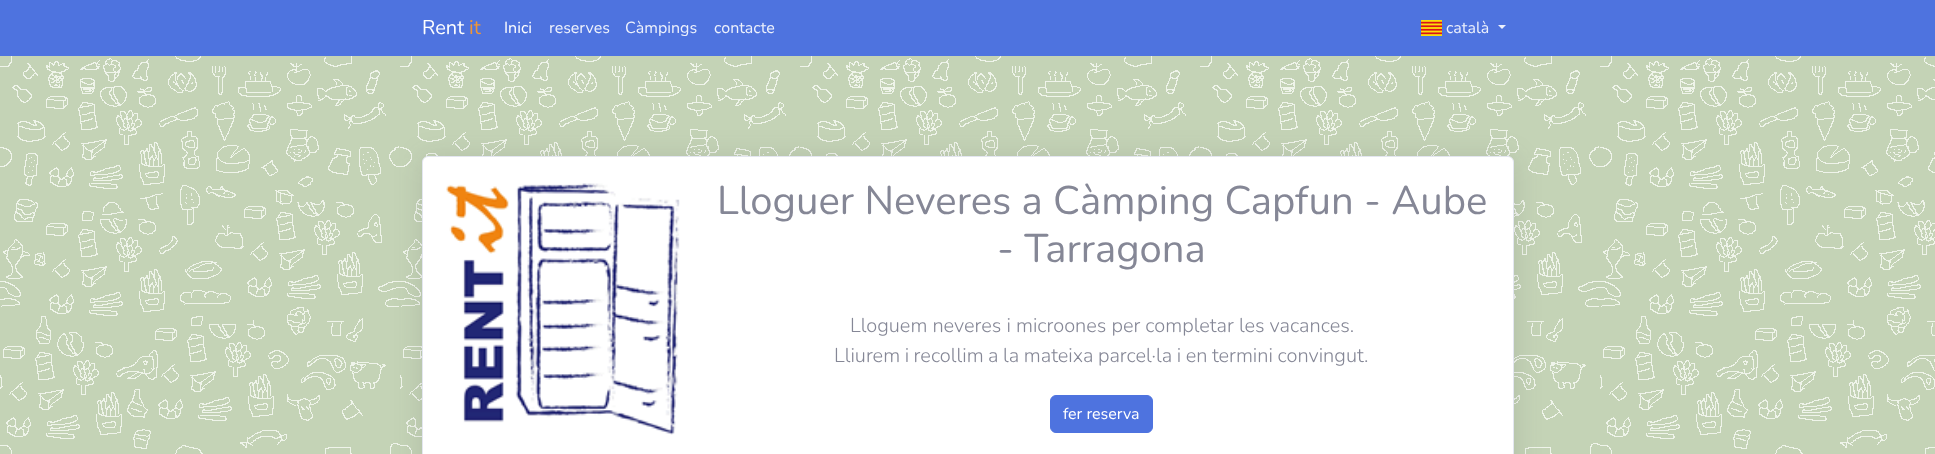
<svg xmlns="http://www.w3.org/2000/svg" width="1935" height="454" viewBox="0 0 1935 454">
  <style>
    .t1 { font: 20px Nunito; fill: #fff; }
    .t2 { font: 20px Nunito; fill: #f09636; }
    .t3 { font: 16px Nunito; fill: #fff; }
    .t4 { font: 16px Nunito; fill: #edf1fc; }
    .t5 { font: 40px Nunito; fill: #858796; }
    .t6 { font: 300 20px Nunito; fill: #858796; }
  </style>
  <rect width="100%" height="100%" fill="#fff"/>
  <rect x="0" y="0" width="1935" height="56" fill="#4e73df"/>
  <text x="422" y="34" class="t1">Rent</text>
  <text x="469" y="34" class="t2">it</text>
  <text x="504" y="33" class="t3">Inici</text>
  <text x="549" y="33" class="t4">reserves</text>
  <text x="625" y="33" class="t4">Càmpings</text>
  <text x="714" y="33" class="t4">contacte</text>
  <image x="1421" y="20" width="21" height="16" href="images/1.png"/>
  <text x="1446" y="33" class="t4">català</text>
  <path d="M1498 25H1506L1502 29Z" fill="#edf1fc"/>
  <image x="0" y="56" width="1935" height="398" href="images/2.png"/>
  <rect x="422" y="158" width="1092" height="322" rx="6" fill="#3a3b4526" filter="blur(14px)"/>
  <rect x="422.5" y="156.5" width="1091" height="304" rx="5.5" fill="#fff" stroke="#e3e6f0"/>
  <image x="446" y="183" width="234" height="252" href="images/3.png"/>
  <text x="717" y="214" class="t5">Lloguer Neveres a Càmping Capfun - Aube</text>
  <text x="997" y="262" class="t5">- Tarragona</text>
  <text x="850" y="332" class="t6">Lloguem neveres i microones per completar les vacances.</text>
  <text x="834" y="362" word-spacing="-0.5" class="t6">Lliurem i recollim a la mateixa parcel·la i en termini convingut.</text>
  <rect x="1050.5" y="395.5" width="102" height="37" rx="5.5" fill="#4e73df" stroke="#4e73df"/>
  <text x="1063" y="419" class="t3">fer reserva</text>
</svg>
